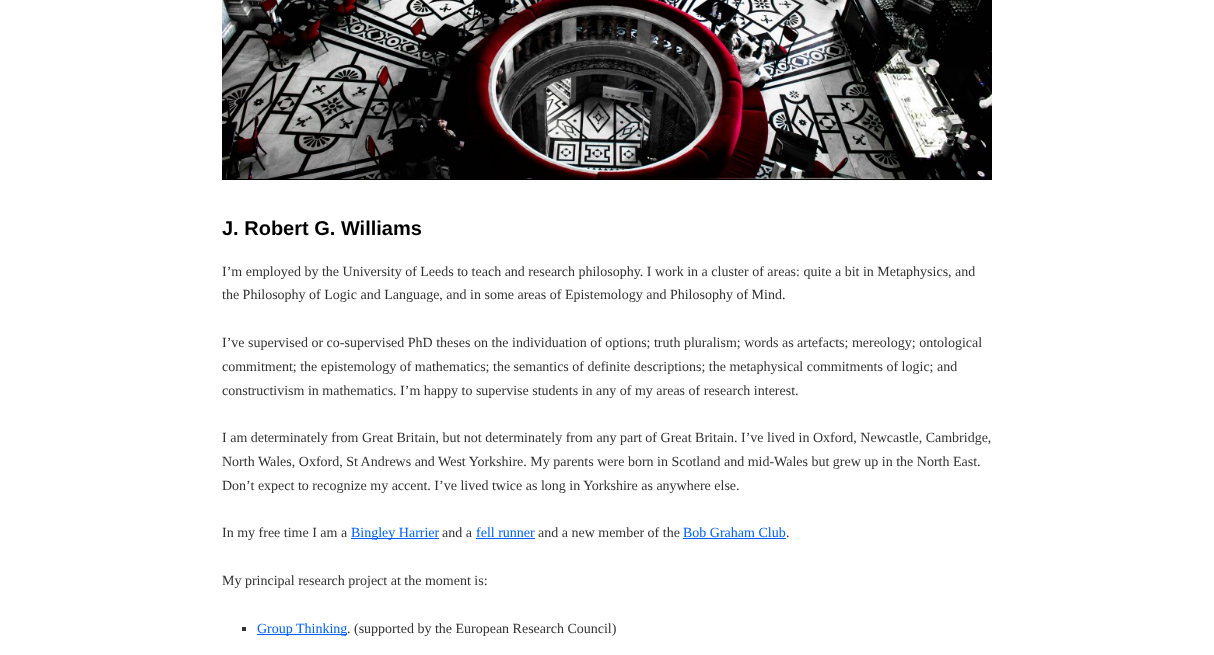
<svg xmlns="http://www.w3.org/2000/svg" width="1214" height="655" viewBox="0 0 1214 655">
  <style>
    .t1 { font: bold 20px Liberation Sans; fill: #000; }
    .t2 { font: 14px Liberation Serif; fill: #333; }
    .t3 { font: 14px Liberation Serif; fill: #0060ff; }
  </style>
  <rect width="100%" height="100%" fill="#fff"/>
  <image x="222" y="0" width="770" height="179" href="images/1.png"/>
  <rect x="222" y="179" width="770" height="1" fill="#000"/>
  <text x="222" y="235" class="t1">J. Robert G. Williams</text>
  <text x="222" y="276" class="t2">I’m employed by the University of Leeds to teach and research philosophy. I work in a cluster of areas: quite a bit in Metaphysics, and</text>
  <text x="222" y="299" class="t2">the Philosophy of Logic and Language, and in some areas of Epistemology and Philosophy of Mind.</text>
  <text x="222" y="347" class="t2">I’ve supervised or co-supervised PhD theses on the individuation of options; truth pluralism; words as artefacts; mereology; ontological</text>
  <text x="222" y="371" class="t2">commitment; the epistemology of mathematics; the semantics of definite descriptions; the metaphysical commitments of logic; and</text>
  <text x="222" y="395" class="t2">constructivism in mathematics. I’m happy to supervise students in any of my areas of research interest.</text>
  <text x="222" y="442" class="t2">I am determinately from Great Britain, but not determinately from any part of Great Britain. I’ve lived in Oxford, Newcastle, Cambridge,</text>
  <text x="222" y="466" class="t2">North Wales, Oxford, St Andrews and West Yorkshire. My parents were born in Scotland and mid-Wales but grew up in the North East.</text>
  <text x="222" y="490" class="t2">Don’t expect to recognize my accent. I’ve lived twice as long in Yorkshire as anywhere else.</text>
  <text x="222" y="537" class="t2">In my free time I am a</text>
  <rect x="351" y="538" width="88" height="1" fill="#0060ff"/>
  <text x="351" y="537" class="t3">Bingley Harrier</text>
  <text x="442" y="537" class="t2">and a</text>
  <text x="476" y="537" class="t3">fell runner</text>
  <rect x="476" y="538" width="59" height="1" fill="#0060ff"/>
  <text x="538" y="537" class="t2">and a new member of the</text>
  <text x="683" y="537" class="t3">Bob Graham Club</text>
  <rect x="683" y="538" width="103" height="1" fill="#0060ff"/>
  <text x="786" y="537" class="t2">.</text>
  <text x="222" y="585" class="t2">My principal research project at the moment is:</text>
  <rect x="242" y="627" width="4" height="4" fill="#333"/>
  <rect x="257" y="634" width="90" height="1" fill="#0060ff"/>
  <text x="257" y="633" class="t3">Group Thinking</text>
  <text x="347" y="633" class="t2">. (supported by the European Research Council)</text>
</svg>
